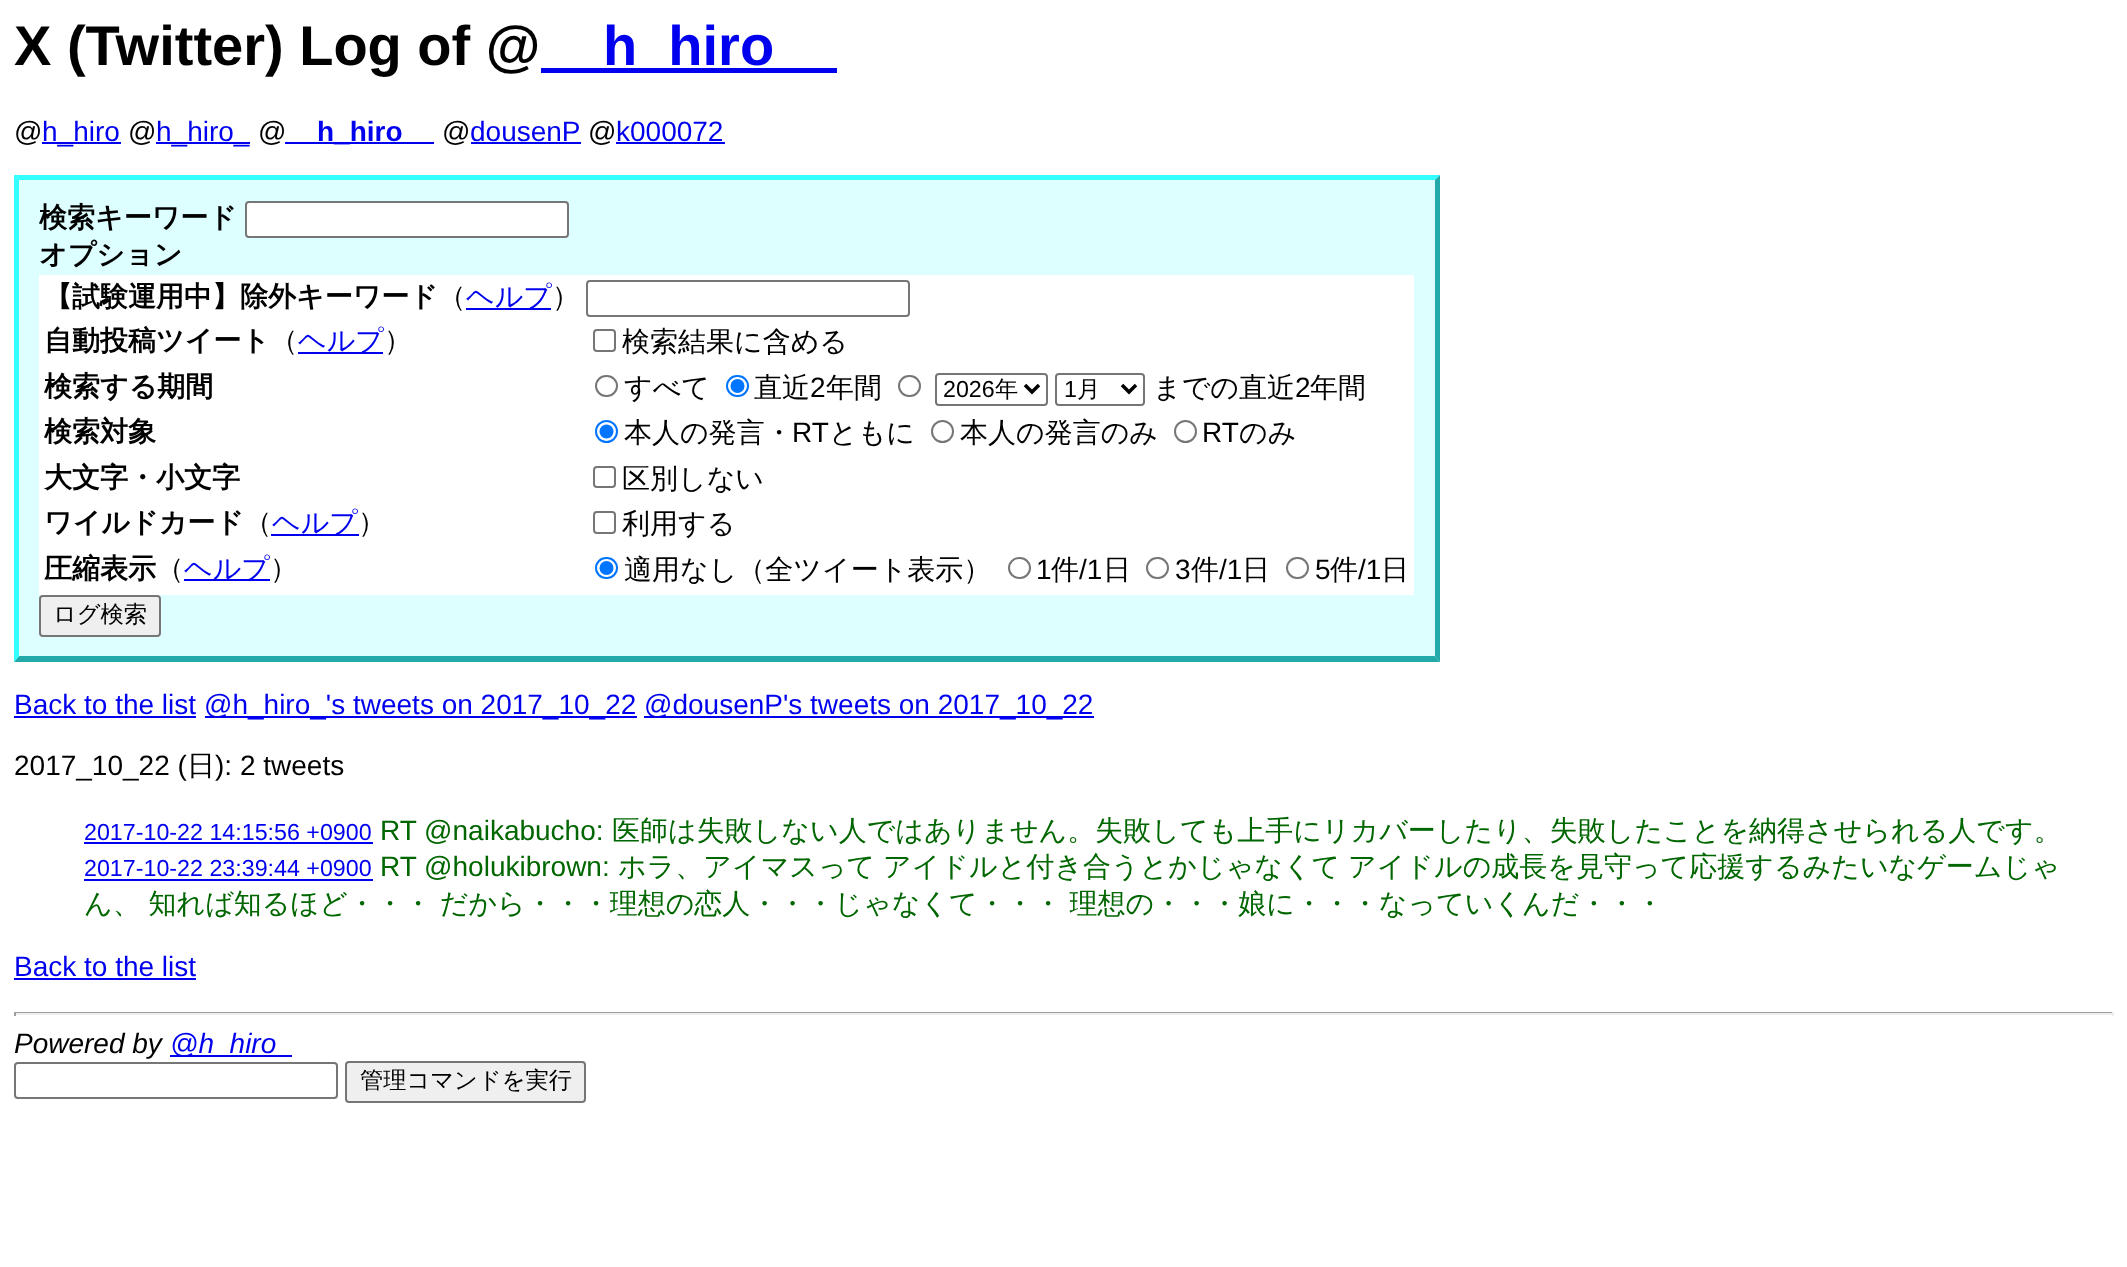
<svg xmlns="http://www.w3.org/2000/svg" width="2127" height="1267" viewBox="0 0 2127 1267">
  <style>
    .t1 { font: bold 56px Liberation Sans; fill: #000; }
    .t2 { font: bold 56px Liberation Sans; fill: #00e; }
    .t3 { font: 28px Liberation Sans; fill: #000; }
    .t4 { font: 28px Liberation Sans; fill: #00e; }
    .t5 { font: bold 28px Liberation Sans; fill: #00e; }
    .t6 { font: bold 28px WenQuanYi Zen Hei; fill: #000; }
    .t7 { font: 500 28px WenQuanYi Zen Hei; fill: #000; }
    .t8 { font: 500 28px WenQuanYi Zen Hei; fill: #00e; }
    .t9 { font: 23.25px Liberation Sans; fill: #000; }
    .t10 { font: 500 23.25px WenQuanYi Zen Hei; fill: #000; }
    .t11 { font: 23.25px Liberation Sans; fill: #00e; }
    .t12 { font: 28px Liberation Sans; fill: #060; }
    .t13 { font: 500 28px WenQuanYi Zen Hei; fill: #060; }
    .t14 { font: italic 28px Liberation Sans; fill: #000; }
    .t15 { font: italic 28px Liberation Sans; fill: #00e; }
  </style>
  <rect width="100%" height="100%" fill="#fff"/>
  <text x="14" y="65" class="t1">X (Twitter) Log of @</text>
  <rect x="541" y="68" width="296" height="5" fill="#00e"/>
  <text x="603" y="65" class="t2">h_hiro</text>
  <text x="14" y="141" class="t3">@</text>
  <rect x="42" y="142" width="79" height="2" fill="#00e"/>
  <text x="42" y="141" class="t4">h_hiro</text>
  <text x="128" y="141" class="t3">@</text>
  <rect x="156" y="142" width="94" height="2" fill="#00e"/>
  <text x="156" y="141" class="t4">h_hiro_</text>
  <text x="258" y="141" class="t3">@</text>
  <rect x="285" y="142" width="149" height="2" fill="#00e"/>
  <text x="317" y="141" class="t5">h_hiro</text>
  <text x="442" y="141" class="t3">@</text>
  <text x="470" y="141" class="t4">dousenP</text>
  <rect x="471" y="142" width="110" height="2" fill="#00e"/>
  <text x="588" y="141" class="t3">@</text>
  <text x="616" y="141" class="t4">k000072</text>
  <rect x="616" y="142" width="109" height="2" fill="#00e"/>
  <rect x="14" y="175" width="1426" height="487" fill="#dff"/>
  <path d="M14 175H1440L1435 180H19Z" fill="#3ff"/>
  <path d="M1440 175V662L1435 656V180Z" fill="#2aa"/>
  <path d="M1440 662H14L19 656H1435Z" fill="#2aa"/>
  <path d="M14 662V175L19 180V656Z" fill="#3ff"/>
  <text x="39" y="227" class="t6">検索キーワード</text>
  <rect x="246" y="202" width="322" height="35" rx="3" fill="#fff" stroke="#767676" stroke-width="2"/>
  <text x="39" y="264" class="t6">オプション</text>
  <rect x="39" y="275" width="1375" height="320" fill="#fff"/>
  <text x="44" y="306" class="t6">【試験運用中】除外キーワード</text>
  <text x="438" y="306" class="t7">（</text>
  <rect x="466" y="308" width="85" height="2" fill="#00e"/>
  <text x="466" y="306" class="t8">ヘルプ</text>
  <text x="552" y="306" class="t7">）</text>
  <rect x="587" y="281" width="322" height="35" rx="3" fill="none" stroke="#767676" stroke-width="2"/>
  <text x="44" y="350" class="t6">自動投稿ツイート</text>
  <text x="270" y="350" class="t7">（</text>
  <rect x="298" y="352" width="85" height="2" fill="#00e"/>
  <text x="298" y="350" class="t8">ヘルプ</text>
  <text x="384" y="350" class="t7">）</text>
  <rect x="594" y="330" width="21" height="21" rx="3" fill="none" stroke="#767676" stroke-width="2"/>
  <text x="622" y="351" class="t7">検索結果に含める</text>
  <text x="44" y="396" class="t6">検索する期間</text>
  <rect x="596" y="376" width="21" height="20" rx="10" fill="none" stroke="#767676" stroke-width="2"/>
  <text x="624" y="397" class="t7">すべて</text>
  <rect x="727" y="376" width="21" height="20" rx="10" fill="none" stroke="#0075ff" stroke-width="2"/>
  <circle cx="737.5" cy="386" r="7" fill="#0075ff"/>
  <text x="754" y="397" class="t7">直近</text>
  <text x="810" y="397" class="t3">2</text>
  <text x="826" y="397" class="t7">年間</text>
  <rect x="899" y="376" width="21" height="20" rx="10" fill="none" stroke="#767676" stroke-width="2"/>
  <rect x="936" y="374" width="111" height="31" rx="3" fill="none" stroke="#767676" stroke-width="2"/>
  <path d="M1025 385L1032 392L1039 385" fill="none" stroke="#000" stroke-width="3.5"/>
  <text x="943" y="397" class="t9">2026</text>
  <text x="995" y="397" class="t10">年</text>
  <rect x="1056" y="374" width="88" height="31" rx="3" fill="none" stroke="#767676" stroke-width="2"/>
  <path d="M1122 385L1129 392L1136 385" fill="none" stroke="#000" stroke-width="3.5"/>
  <text x="1064" y="397" class="t9">1</text>
  <text x="1077" y="397" class="t10">月</text>
  <text x="1153" y="397" class="t7">までの直近</text>
  <text x="1295" y="397" class="t3">2</text>
  <text x="1310" y="397" class="t7">年間</text>
  <text x="44" y="441" class="t6">検索対象</text>
  <circle cx="606.5" cy="431.5" r="10.5" fill="none" stroke="#0075ff" stroke-width="2"/>
  <circle cx="606.5" cy="431.5" r="7" fill="#0075ff"/>
  <text x="624" y="442" class="t7">本人の発言・</text>
  <text x="792" y="442" class="t3">RT</text>
  <text x="829" y="442" class="t7">ともに</text>
  <circle cx="942.5" cy="431.5" r="10.5" fill="none" stroke="#767676" stroke-width="2"/>
  <text x="960" y="442" class="t7">本人の発言のみ</text>
  <circle cx="1185.5" cy="431.5" r="10.5" fill="none" stroke="#767676" stroke-width="2"/>
  <text x="1202" y="442" class="t3">RT</text>
  <text x="1239" y="442" class="t7">のみ</text>
  <text x="44" y="487" class="t6">大文字・小文字</text>
  <rect x="594" y="467" width="21" height="20" rx="3" fill="none" stroke="#767676" stroke-width="2"/>
  <text x="622" y="488" class="t7">区別しない</text>
  <text x="44" y="532" class="t6">ワイルドカード</text>
  <text x="244" y="532" class="t7">（</text>
  <rect x="271" y="534" width="88" height="2" fill="#00e"/>
  <text x="272" y="532" class="t8">ヘルプ</text>
  <text x="358" y="532" class="t7">）</text>
  <rect x="594" y="512" width="21" height="21" rx="3" fill="none" stroke="#767676" stroke-width="2"/>
  <text x="622" y="533" class="t7">利用する</text>
  <text x="44" y="578" class="t6">圧縮表示</text>
  <text x="156" y="578" class="t7">（</text>
  <rect x="184" y="579" width="86" height="2" fill="#00e"/>
  <text x="184" y="578" class="t8">ヘルプ</text>
  <text x="270" y="578" class="t7">）</text>
  <rect x="596" y="558" width="21" height="20" rx="10" fill="none" stroke="#0075ff" stroke-width="2"/>
  <circle cx="606.5" cy="568" r="7" fill="#0075ff"/>
  <text x="624" y="579" class="t7">適用なし（全ツイート表示）</text>
  <rect x="1009" y="558" width="21" height="20" rx="10" fill="none" stroke="#767676" stroke-width="2"/>
  <text x="1036" y="579" class="t3">1</text>
  <text x="1051" y="579" class="t7">件</text>
  <text x="1079" y="579" class="t3">/1</text>
  <text x="1103" y="579" class="t7">日</text>
  <rect x="1147" y="558" width="21" height="20" rx="10" fill="none" stroke="#767676" stroke-width="2"/>
  <text x="1175" y="579" class="t3">3</text>
  <text x="1191" y="579" class="t7">件</text>
  <text x="1219" y="579" class="t3">/1</text>
  <text x="1242" y="579" class="t7">日</text>
  <rect x="1287" y="558" width="21" height="20" rx="10" fill="none" stroke="#767676" stroke-width="2"/>
  <text x="1315" y="579" class="t3">5</text>
  <text x="1330" y="579" class="t7">件</text>
  <text x="1358" y="579" class="t3">/1</text>
  <text x="1381" y="579" class="t7">日</text>
  <rect x="40" y="596" width="120" height="40" rx="3" fill="#efefef" stroke="#767676" stroke-width="2"/>
  <text x="53" y="622" class="t10">ログ検索</text>
  <text x="14" y="714" class="t4">Back to the list</text>
  <rect x="14" y="716" width="182" height="2" fill="#00e"/>
  <rect x="205" y="716" width="432" height="2" fill="#00e"/>
  <text x="204" y="714" class="t4">@h_hiro_'s tweets on 2017_10_22</text>
  <rect x="644" y="716" width="450" height="2" fill="#00e"/>
  <text x="644" y="714" class="t4">@dousenP's tweets on 2017_10_22</text>
  <text x="14" y="775" class="t3">2017_10_22 (</text>
  <text x="187" y="775" class="t7">日</text>
  <text x="215" y="775" class="t3">): 2 tweets</text>
  <text x="84" y="840" class="t11">2017-10-22 14:15:56 +0900</text>
  <rect x="84" y="842" width="289" height="2" fill="#00e"/>
  <text x="380" y="840" class="t12">RT @naikabucho:</text>
  <text x="612" y="840" class="t13">医師は失敗しない人ではありません。失敗しても上手にリカバーしたり、失敗したことを納得させられる人です。</text>
  <text x="84" y="876" class="t11">2017-10-22 23:39:44 +0900</text>
  <rect x="84" y="879" width="289" height="2" fill="#00e"/>
  <text x="380" y="876" class="t12">RT @holukibrown:</text>
  <text x="618" y="876" class="t13">ホラ、アイマスって</text>
  <text x="883" y="876" class="t13">アイドルと付き合うとかじゃなくて</text>
  <text x="1348" y="876" class="t13">アイドルの成長を見守って応援するみたいなゲームじゃ</text>
  <text x="84" y="913" word-spacing="-0.5" class="t13">ん、 知れば知るほど・・・ だから・・・理想の恋人・・・じゃなくて・・・ 理想の・・・娘に・・・なっていくんだ・・・</text>
  <text x="14" y="976" class="t4">Back to the list</text>
  <rect x="14" y="978" width="182" height="2" fill="#00e"/>
  <rect x="14" y="1012" width="2100" height="1" fill="#9f9f9f"/>
  <rect x="2112" y="1012" width="2" height="4" fill="#eee"/>
  <rect x="14" y="1013" width="2100" height="2" fill="#eee"/>
  <rect x="14" y="1012" width="2" height="4" fill="#9f9f9f"/>
  <text x="14" y="1053" class="t14">Powered by</text>
  <rect x="170" y="1055" width="122" height="2" fill="#00e"/>
  <text x="170" y="1053" class="t15">@h_hiro</text>
  <rect x="15" y="1063" width="322" height="35" rx="3" fill="none" stroke="#767676" stroke-width="2"/>
  <rect x="346" y="1062" width="239" height="40" rx="3" fill="#efefef" stroke="#767676" stroke-width="2"/>
  <text x="360" y="1088" class="t10">管理コマンドを実行</text>
</svg>
